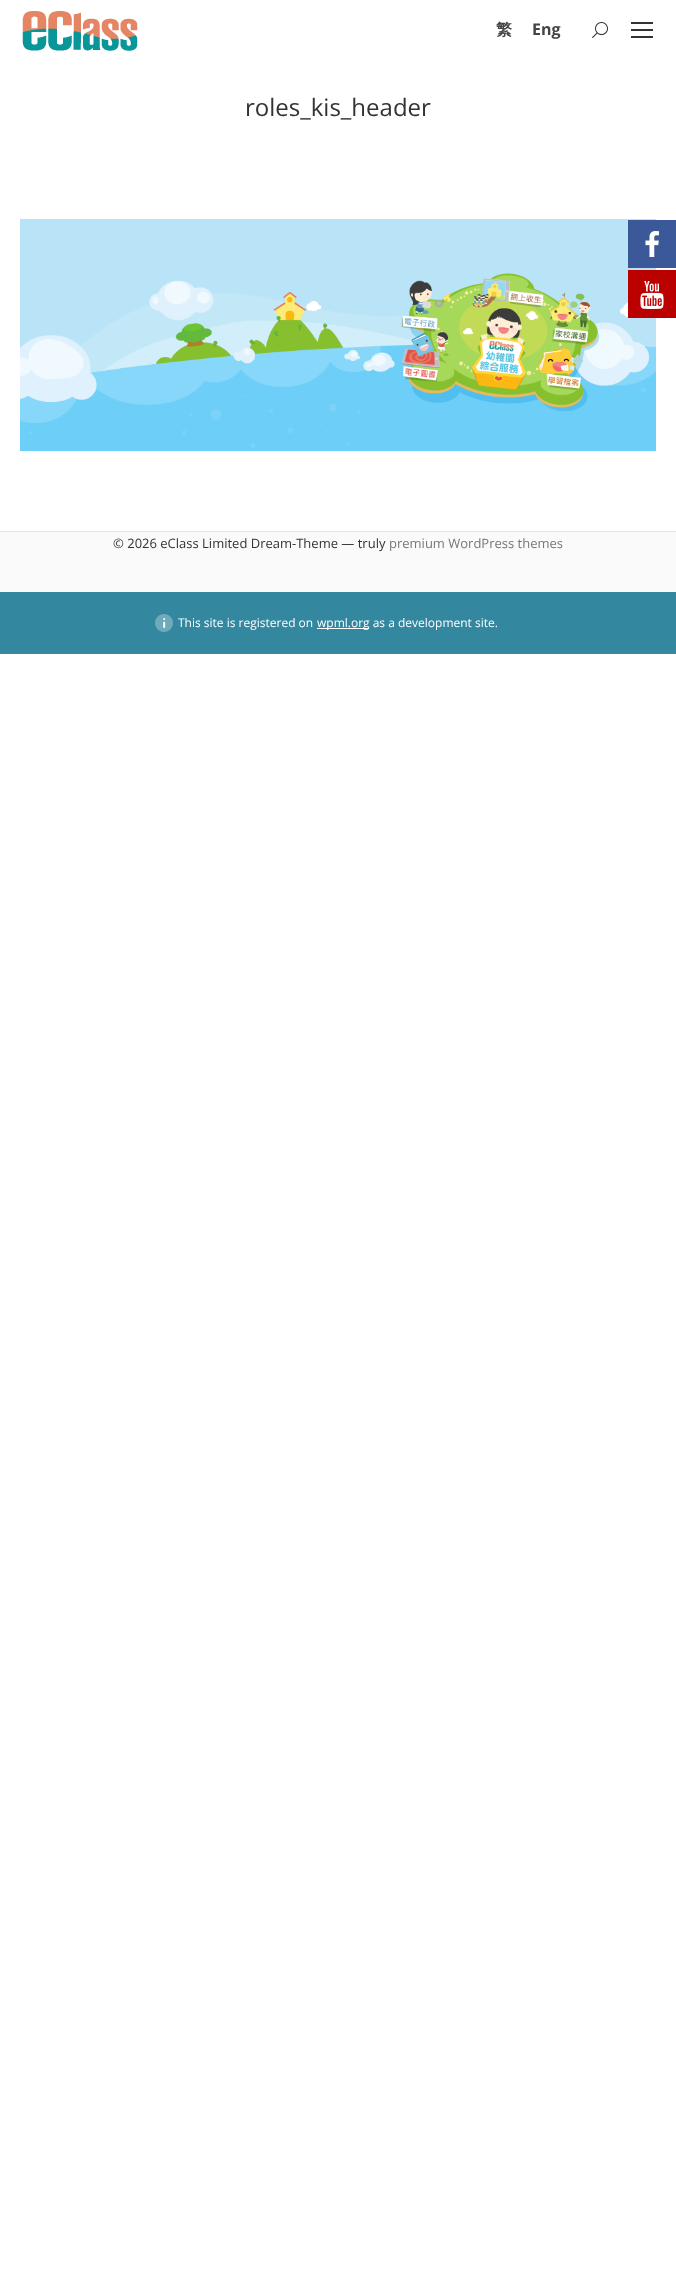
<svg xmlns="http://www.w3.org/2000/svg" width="676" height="2271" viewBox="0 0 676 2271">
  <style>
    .t1 { font: bold 16px WenQuanYi Zen Hei; fill: #444; }
    .t2 { font: bold 16px Open Sans; fill: #444; }
    .t3 { font: 24px Open Sans; fill: #333; }
    .t4 { font: 13px Open Sans; fill: #333; }
    .t5 { font: 13px Open Sans; fill: #777; }
    .t6 { font: 12px Open Sans; fill: #fff; }
  </style>
  <rect width="100%" height="100%" fill="#fff"/>
  <image x="22" y="11" width="116" height="40" href="images/1.png"/>
  <text x="496" y="35" class="t1">繁</text>
  <text x="532" y="35" class="t2">Eng</text>
  <image x="592" y="22" width="16" height="16" href="images/2.png"/>
  <rect x="631" y="22" width="22" height="2" fill="#333"/>
  <rect x="631" y="29" width="22" height="2" fill="#333"/>
  <rect x="631" y="36" width="22" height="2" fill="#333"/>
  <text x="245" y="116" class="t3">roles_kis_header</text>
  <image x="20" y="219" width="636" height="232" href="images/3.png"/>
  <rect x="0" y="532" width="676" height="60" fill="#fafafa"/>
  <rect x="0" y="531" width="676" height="1" fill="#e6e6e6"/>
  <text x="113" y="548" class="t4">© 2026 eClass Limited Dream-Theme — truly</text>
  <text x="389" y="548" class="t5">premium WordPress themes</text>
  <rect x="628" y="220" width="48" height="48" fill="#3b5998"/>
  <image x="645" y="231" width="14" height="26" href="images/4.png"/>
  <rect x="628" y="270" width="48" height="48" fill="#b00"/>
  <image x="640" y="281" width="24" height="28" href="images/5.png"/>
  <rect x="0" y="592" width="676" height="62" fill="#33879e"/>
  <image x="155" y="614" width="18" height="18" href="images/6.png"/>
  <text x="178" y="627" class="t6">This site is registered on</text>
  <rect x="317" y="628" width="52" height="1" fill="#fff"/>
  <text x="317" y="627" class="t6">wpml.org as a development site.</text>
</svg>
